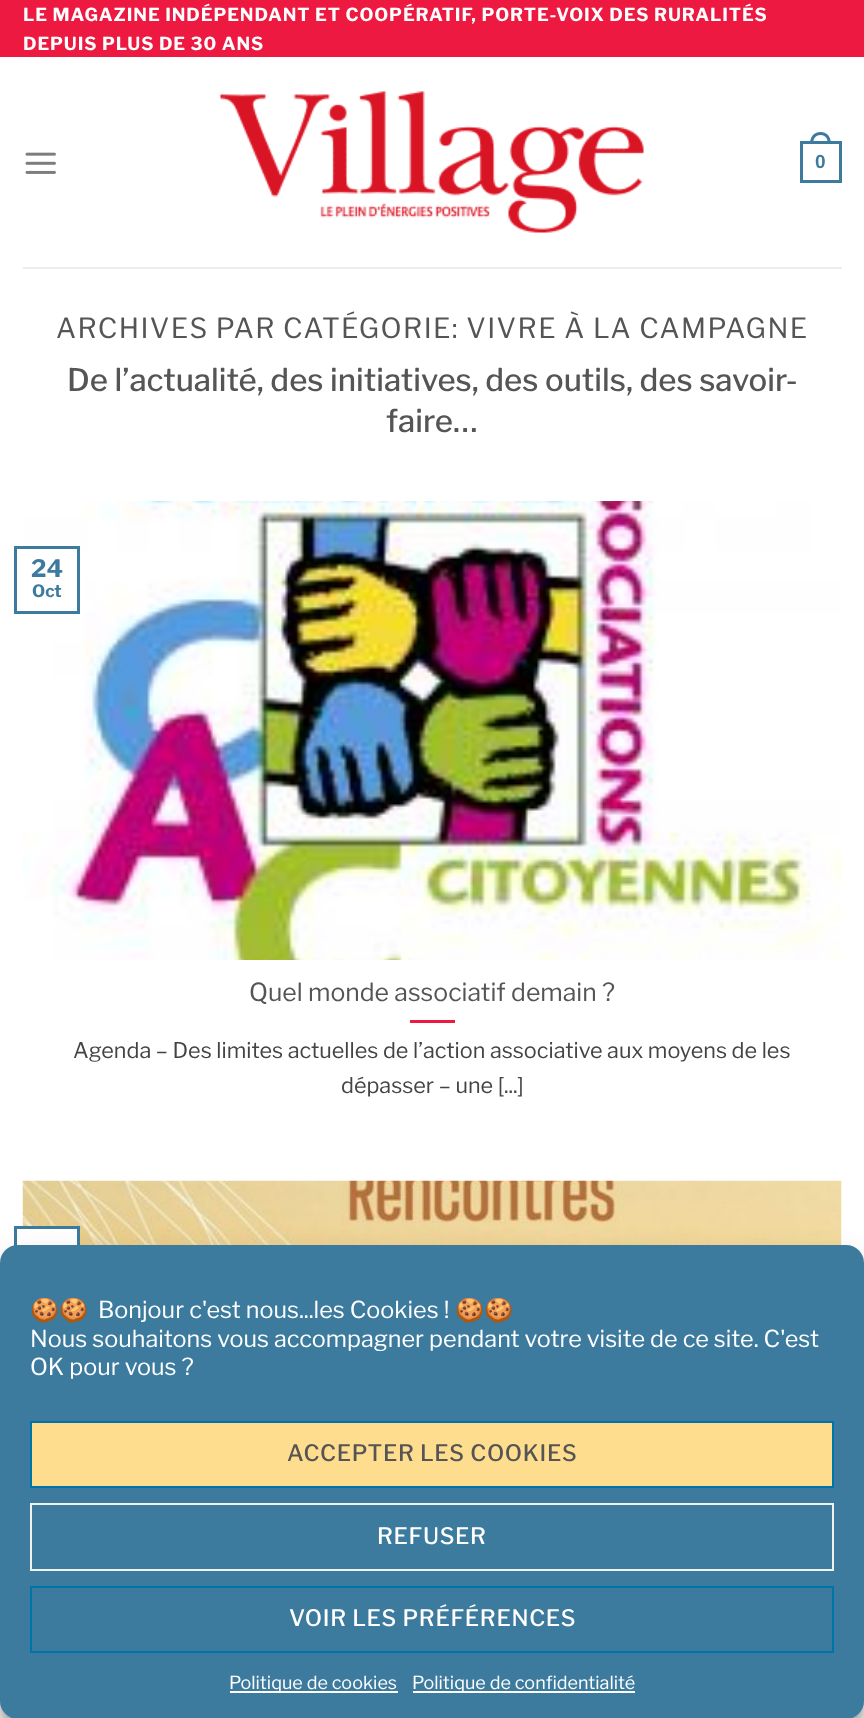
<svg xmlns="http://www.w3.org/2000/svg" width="864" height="1718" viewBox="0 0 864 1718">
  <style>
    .t1 { font: bold 18px Libre Franklin; letter-spacing: 0.9px; fill: #fff; }
    .t2 { font: bold 19px Liberation Sans; fill: #3c7b9e; }
    .t3 { font: 27.6px Libre Franklin; letter-spacing: 1.4px; fill: #555; }
    .t4 { font: 500 31.2px Libre Franklin; fill: #555; }
    .t5 { font: bold 24px Libre Franklin; fill: #3c7b9e; }
    .t6 { font: bold 17px Libre Franklin; fill: #3c7b9e; }
    .t7 { font: 24.8px Libre Franklin; fill: #555; }
    .t8 { font: 21.6px Libre Franklin; fill: #444; }
    .t9 { font: 23.4px Noto Color Emoji; fill: #fff; }
    .t10 { font: 23.4px Libre Franklin; fill: #fff; }
    .t11 { font: 500 22.5px Libre Franklin; letter-spacing: 0.7px; fill: #555; }
    .t12 { font: 500 22.5px Libre Franklin; letter-spacing: 0.7px; fill: #fff; }
    .t13 { font: 18px Libre Franklin; fill: #fff; }
  </style>
  <defs>
    <clipPath id="clip1"><rect x="30" y="1298" width="804" height="93"/></clipPath>
  </defs>
  <rect width="100%" height="100%" fill="#fff"/>
  <rect x="0" y="0" width="864" height="57" fill="#ed1941"/>
  <text x="23" y="21" class="t1">LE MAGAZINE INDÉPENDANT ET COOPÉRATIF, PORTE-VOIX DES RURALITÉS</text>
  <text x="23" y="50" class="t1">DEPUIS PLUS DE 30 ANS</text>
  <image x="25" y="152" width="31" height="22" href="images/1.png"/>
  <image x="220" y="91" width="424" height="142" href="images/2.png"/>
  <rect x="801.5" y="142.5" width="39" height="39" fill="none" stroke="#3c7b9e" stroke-width="3"/>
  <path d="M820.5 132C827.5 132 831 137.5 831 144H810C810 137.5 813.5 132 820.5 132ZM820.5 135C826 135 828 139.5 828 144H813C813 139.5 815 135 820.5 135Z" fill="#3c7b9e" fill-rule="evenodd"/>
  <text x="815" y="168" class="t2">0</text>
  <rect x="23" y="267" width="819" height="2" fill="#ececec"/>
  <text x="56" y="338" class="t3">ARCHIVES PAR CATÉGORIE: VIVRE À LA CAMPAGNE</text>
  <text x="67" y="391" class="t4">De l’actualité, des initiatives, des outils, des savoir-</text>
  <text x="386" y="432" class="t4">faire…</text>
  <image x="23" y="501" width="819" height="459" href="images/3.png"/>
  <rect x="15.5" y="547.5" width="63" height="65" fill="none" stroke="#3c7b9e" stroke-width="3"/>
  <text x="31" y="577" class="t5">24</text>
  <text x="32" y="597" class="t6">Oct</text>
  <text x="249" y="1001" class="t7">Quel monde associatif demain ?</text>
  <rect x="410" y="1020" width="45" height="3" fill="#ed1941"/>
  <text x="73" y="1058" class="t8">Agenda – Des limites actuelles de l’action associative aux moyens de les</text>
  <text x="341" y="1093" class="t8">dépasser – une [...]</text>
  <image x="22" y="1180" width="820" height="65" href="images/4.png"/>
  <rect x="22" y="1229" width="55" height="16" fill="#fff"/>
  <rect x="15.5" y="1227.5" width="63" height="64" fill="none" stroke="#3c7b9e" stroke-width="3"/>
  <rect x="0" y="1254" width="864" height="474" rx="18" fill="#0000003b" filter="blur(4.5px)"/>
  <rect x="0" y="1260" width="864" height="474" rx="18" fill="#00000030" filter="blur(15px)"/>
  <rect x="0" y="1245" width="864" height="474" rx="18" fill="#3c7b9e"/>
  <g clip-path="url(#clip1)">
    <text x="30" y="1318" class="t9">🍪🍪</text>
  </g>
  <text x="98" y="1318" class="t10">Bonjour c'est nous...les Cookies !</text>
  <g clip-path="url(#clip1)">
    <text x="455" y="1318" class="t9">🍪🍪</text>
  </g>
  <text x="30" y="1347" class="t10">Nous souhaitons vous accompagner pendant votre visite de ce site. C'est</text>
  <text x="30" y="1375" class="t10">OK pour vous ?</text>
  <rect x="31" y="1422" width="802" height="65" fill="#ffdd8e" stroke="#0073aa" stroke-width="2"/>
  <text x="287" y="1461" class="t11">ACCEPTER LES COOKIES</text>
  <rect x="31" y="1504" width="802" height="66" fill="none" stroke="#f1f1f1" stroke-width="2"/>
  <text x="377" y="1544" class="t12">REFUSER</text>
  <rect x="31" y="1587" width="802" height="65" fill="none" stroke="#0073aa" stroke-width="2"/>
  <text x="289" y="1626" class="t12">VOIR LES PRÉFÉRENCES</text>
  <rect x="230" y="1691" width="168" height="2" fill="#fff"/>
  <text x="229" y="1689" class="t13">Politique de cookies</text>
  <rect x="413" y="1691" width="222" height="2" fill="#fff"/>
  <text x="412" y="1689" class="t13">Politique de confidentialité</text>
</svg>
